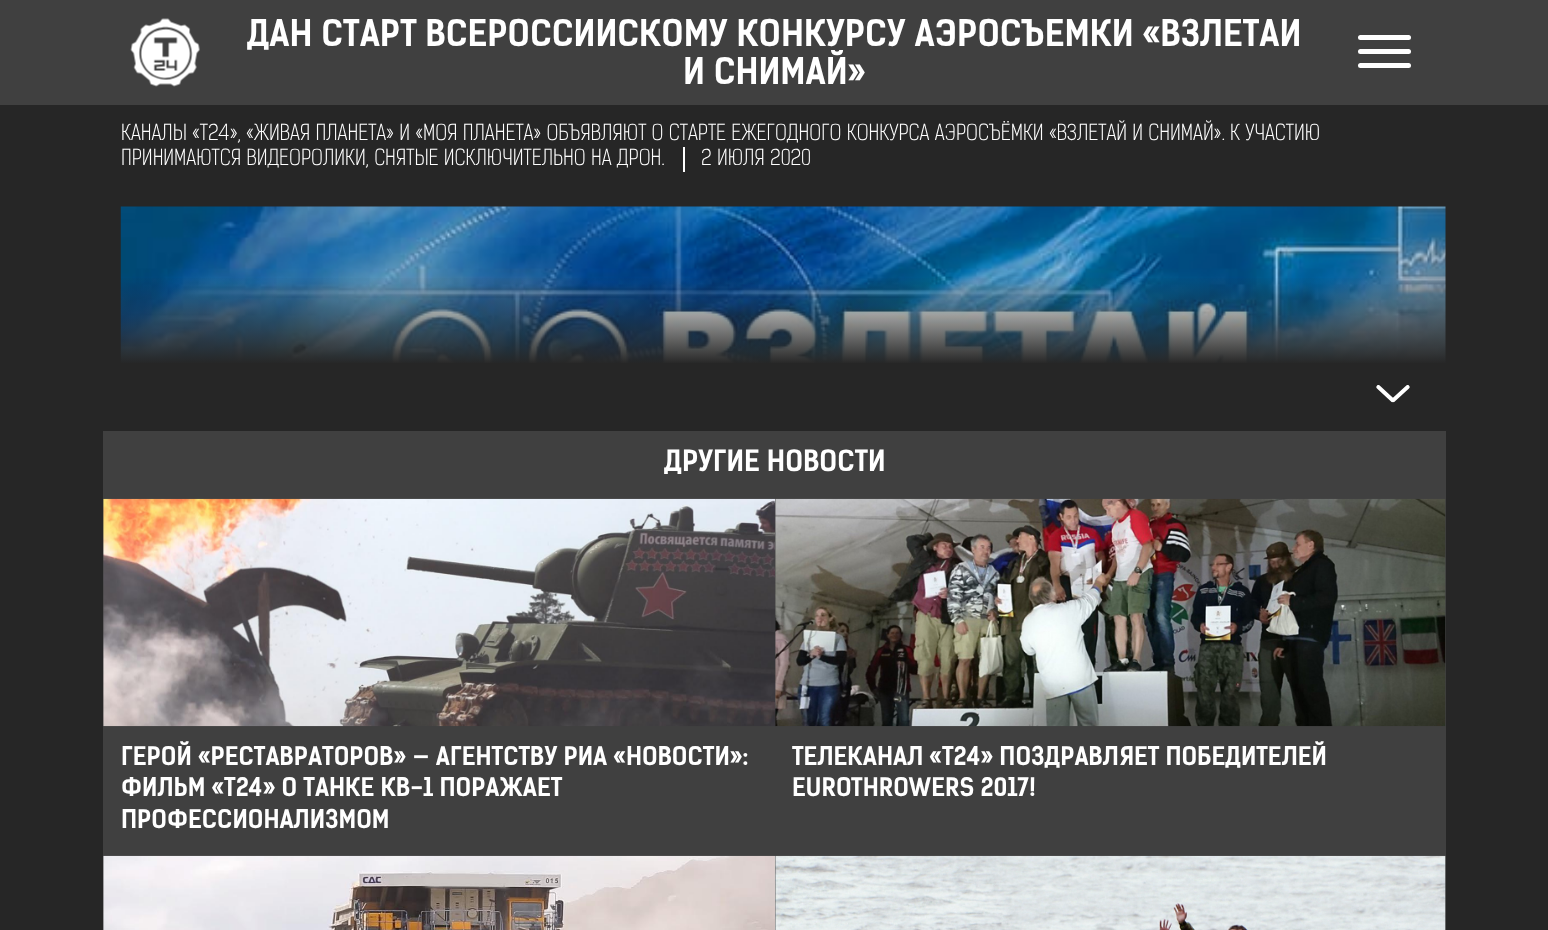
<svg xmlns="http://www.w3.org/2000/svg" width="1548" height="930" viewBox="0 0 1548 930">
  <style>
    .t1 { font: bold 35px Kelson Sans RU; fill: #fff; }
    .t2 { font: 300 21px Kelson Sans RU; fill: #fff; }
    .t3 { font: bold 28px Kelson Sans RU; fill: #fff; }
    .t4 { font: bold 24.5px Kelson Sans RU; fill: #fff; }
  </style>
  <defs>
    <clipPath id="clip1"><rect x="235" y="18" width="1079" height="77"/></clipPath>
    <linearGradient id="g1" gradientUnits="userSpaceOnUse" x1="774" y1="276" x2="774" y2="364"><stop offset="0" stop-color="#262626" stop-opacity="0"/><stop offset="1" stop-color="#262626"/></linearGradient>
  </defs>
  <rect width="100%" height="100%" fill="#262626"/>
  <rect x="0" y="0" width="1548" height="105" fill="#404040"/>
  <image x="130" y="18" width="70" height="69" href="images/1.png"/>
  <g clip-path="url(#clip1)">
    <text x="247" y="46" class="t1">ДАН СТАРТ ВСЕРОССИЙСКОМУ КОНКУРСУ АЭРОСЪЁМКИ «ВЗЛЕТАЙ</text>
  </g>
  <text x="683" y="84" class="t1">И СНИМАЙ»</text>
  <rect x="1358" y="35" width="53" height="5" rx="2.5" fill="#fff"/>
  <rect x="1358" y="49" width="53" height="5" rx="2.5" fill="#fff"/>
  <rect x="1358" y="63" width="53" height="5" rx="2.5" fill="#fff"/>
  <text x="121" y="140" class="t2">КАНАЛЫ «Т24», «ЖИВАЯ ПЛАНЕТА» И «МОЯ ПЛАНЕТА» ОБЪЯВЛЯЮТ О СТАРТЕ ЕЖЕГОДНОГО КОНКУРСА АЭРОСЪЁМКИ «ВЗЛЕТАЙ И СНИМАЙ». К УЧАСТИЮ</text>
  <text x="121" y="165" class="t2">ПРИНИМАЮТСЯ ВИДЕОРОЛИКИ, СНЯТЫЕ ИСКЛЮЧИТЕЛЬНО НА ДРОН.</text>
  <rect x="683" y="147" width="2" height="25" fill="#fff"/>
  <text x="701" y="165" class="t2">2 ИЮЛЯ 2020</text>
  <image x="120" y="206" width="1326" height="157" href="images/2.png"/>
  <rect x="120" y="278" width="1326" height="85" fill="url(#g1)"/>
  <image x="1376" y="385" width="34" height="18" href="images/3.png"/>
  <rect x="103" y="431" width="1343" height="68" fill="#404040"/>
  <text x="664" y="471" class="t3">ДРУГИЕ НОВОСТИ</text>
  <rect x="103" y="499" width="1343" height="357" fill="#404040"/>
  <image x="103" y="498" width="673" height="229" href="images/4.png"/>
  <text x="121" y="765" class="t4">ГЕРОЙ «РЕСТАВРАТОРОВ» — АГЕНТСТВУ РИА «НОВОСТИ»:</text>
  <text x="121" y="796" class="t4">ФИЛЬМ «Т24» О ТАНКЕ КВ-1 ПОРАЖАЕТ</text>
  <text x="121" y="828" class="t4">ПРОФЕССИОНАЛИЗМОМ</text>
  <image x="775" y="498" width="671" height="229" href="images/5.png"/>
  <text x="792" y="765" class="t4">ТЕЛЕКАНАЛ «Т24» ПОЗДРАВЛЯЕТ ПОБЕДИТЕЛЕЙ</text>
  <text x="792" y="796" class="t4">EUROTHROWERS 2017!</text>
  <rect x="103" y="856" width="1" height="74" fill="#404040"/>
  <rect x="775" y="856" width="671" height="74" fill="#404040"/>
  <image x="103" y="855" width="673" height="75" href="images/6.png"/>
  <image x="775" y="855" width="671" height="75" href="images/7.png"/>
</svg>
